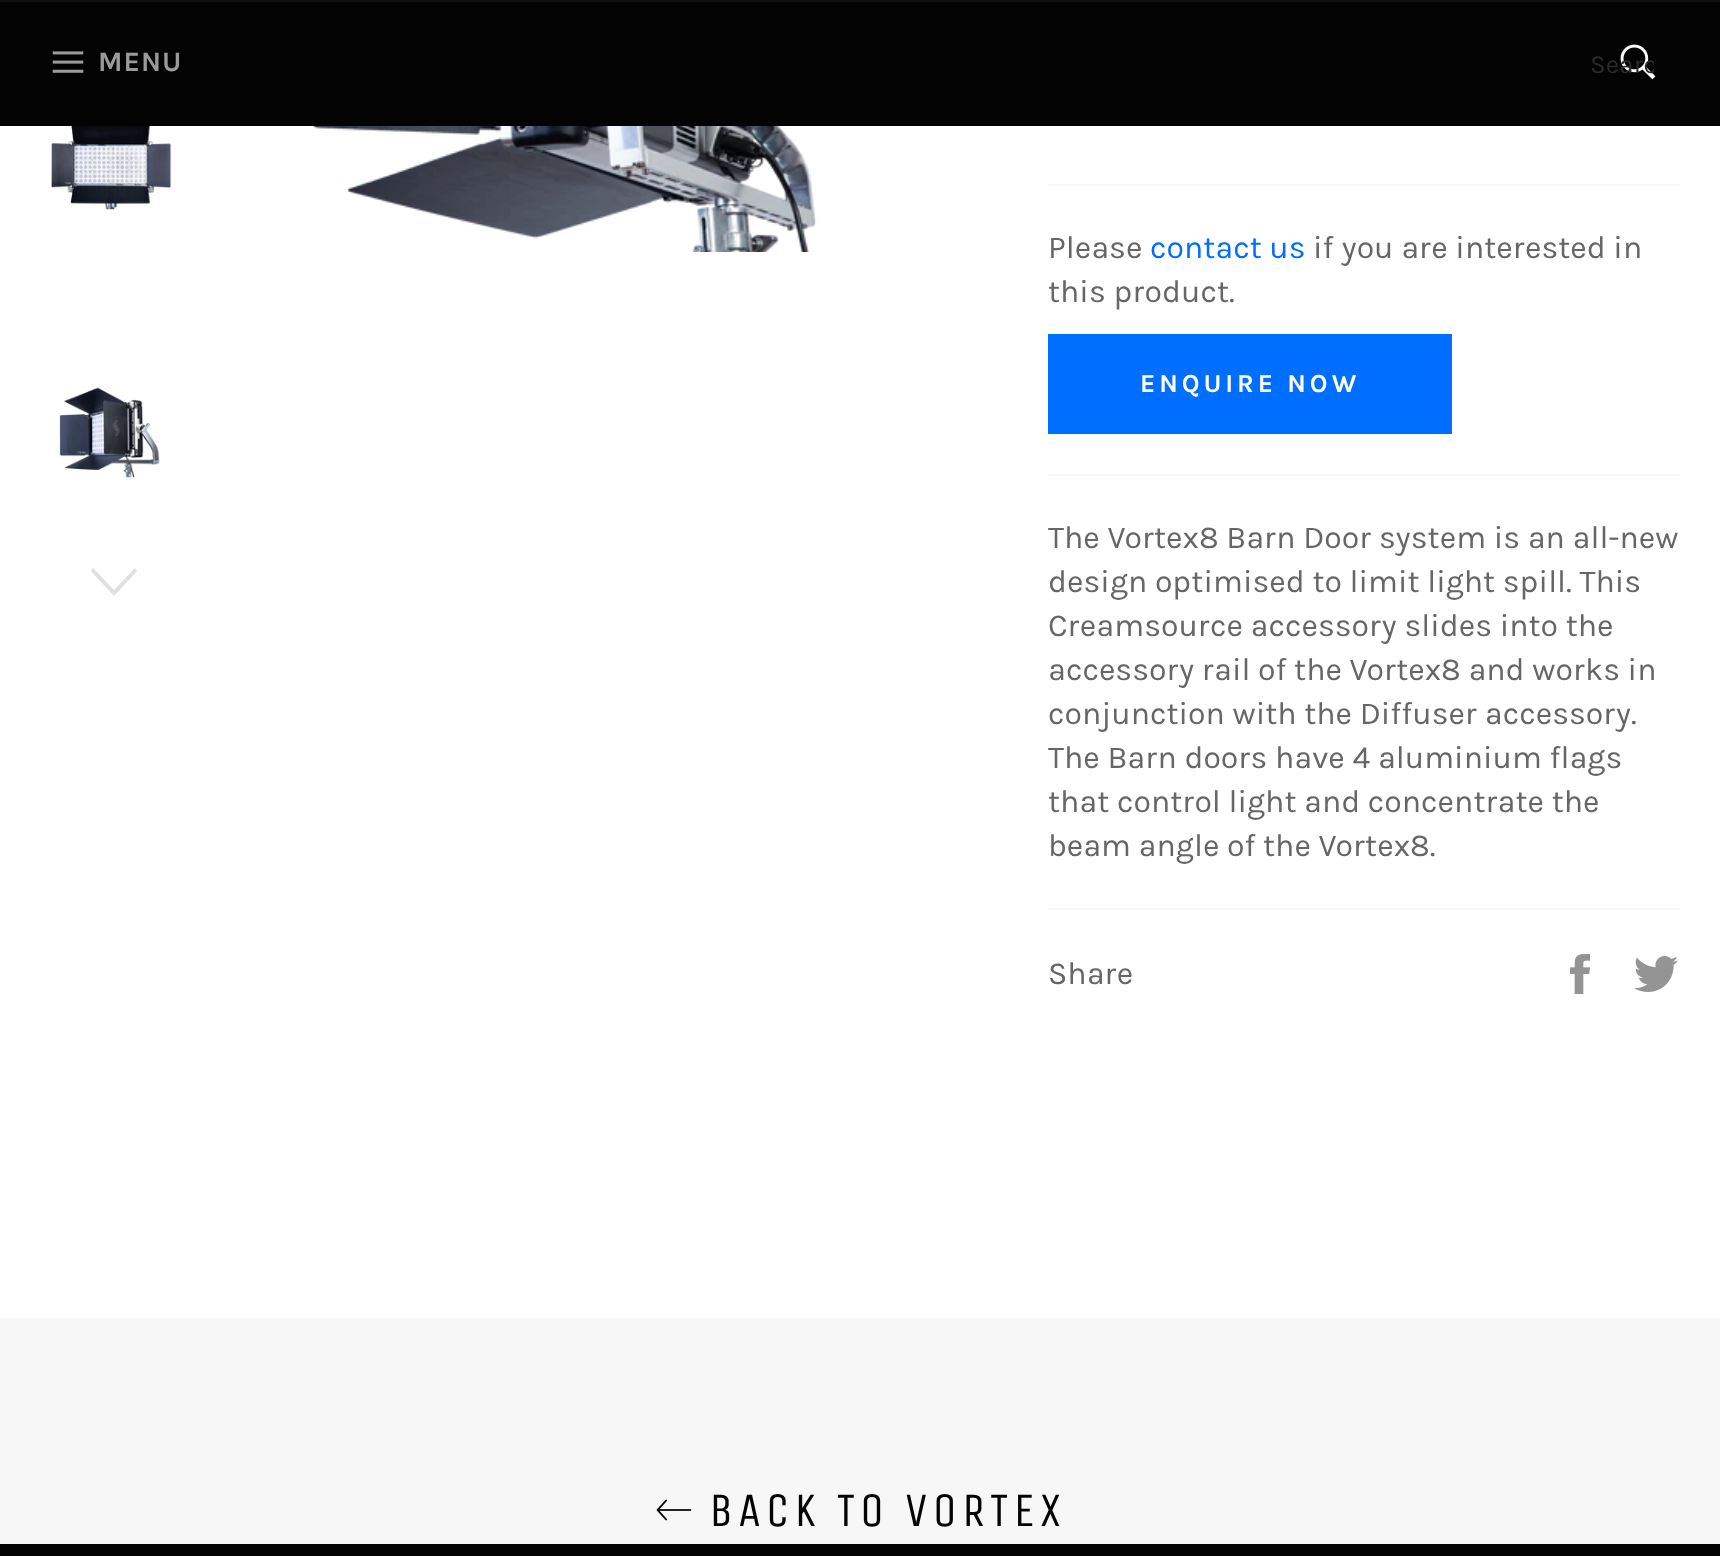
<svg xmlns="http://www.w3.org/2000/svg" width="1720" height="1556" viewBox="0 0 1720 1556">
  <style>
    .t1 { font: bold 28px Karla; letter-spacing: 1px; fill: #9a9a9a; }
    .t2 { font: 26px Karla; fill: #2b2b2b; }
    .t3 { font: 32px Karla; fill: #666; }
    .t4 { font: 32px Karla; fill: #006eff; }
    .t5 { font: bold 26px Karla; letter-spacing: 3.9px; fill: #fff; }
    .t6 { font: 48px Unica One; letter-spacing: 4.75px; fill: #030303; }
  </style>
  <defs>
    <clipPath id="clip1"><rect x="1590" y="50" width="64" height="30"/></clipPath>
  </defs>
  <rect width="100%" height="100%" fill="#f7f7f7"/>
  <rect x="0" y="2" width="1720" height="124" fill="#030303"/>
  <rect x="0" y="0" width="1720" height="2" fill="#101010"/>
  <image x="52" y="51" width="32" height="22" href="images/1.png"/>
  <text x="98" y="71" class="t1">MENU</text>
  <image x="1620" y="44" width="36" height="36" href="images/2.png"/>
  <g clip-path="url(#clip1)">
    <text x="1590" y="73" class="t2">Searc</text>
  </g>
  <rect x="0" y="126" width="1720" height="1192" fill="#fff"/>
  <image x="51" y="126" width="121" height="84" href="images/3.png"/>
  <image x="59" y="387" width="101" height="91" href="images/4.png"/>
  <path d="M135 568L137 571L114 596L91 571L93 568L114 590Z" fill="#e0e0e0"/>
  <image x="312" y="126" width="505" height="126" href="images/5.png"/>
  <rect x="1048" y="184" width="632" height="2" fill="#f7f7f7"/>
  <text x="1048" y="258" class="t3">Please</text>
  <text x="1150" y="258" class="t4">contact us</text>
  <text x="1313" y="258" class="t3">if you are interested in</text>
  <text x="1048" y="302" class="t3">this product.</text>
  <rect x="1048" y="334" width="404" height="100" fill="#006eff"/>
  <text x="1140" y="392" class="t5">ENQUIRE NOW</text>
  <rect x="1048" y="474" width="632" height="2" fill="#f7f7f7"/>
  <text x="1048" y="548" class="t3">The Vortex8 Barn Door system is an all-new</text>
  <text x="1048" y="592" class="t3">design optimised to limit light spill. This</text>
  <text x="1048" y="636" class="t3">Creamsource accessory slides into the</text>
  <text x="1048" y="680" class="t3">accessory rail of the Vortex8 and works in</text>
  <text x="1048" y="724" class="t3">conjunction with the Diffuser accessory.</text>
  <text x="1048" y="768" class="t3">The Barn doors have 4 aluminium flags</text>
  <text x="1048" y="812" class="t3">that control light and concentrate the</text>
  <text x="1048" y="856" class="t3">beam angle of the Vortex8.</text>
  <rect x="1048" y="908" width="632" height="2" fill="#f7f7f7"/>
  <text x="1048" y="984" class="t3">Share</text>
  <image x="1570" y="954" width="20" height="40" href="images/6.png"/>
  <image x="1634" y="956" width="44" height="36" href="images/7.png"/>
  <image x="656" y="1499" width="36" height="22" href="images/8.png"/>
  <text x="709" y="1526" class="t6">BACK TO VORTEX</text>
  <rect x="0" y="1544" width="1720" height="12" fill="#030303"/>
</svg>
